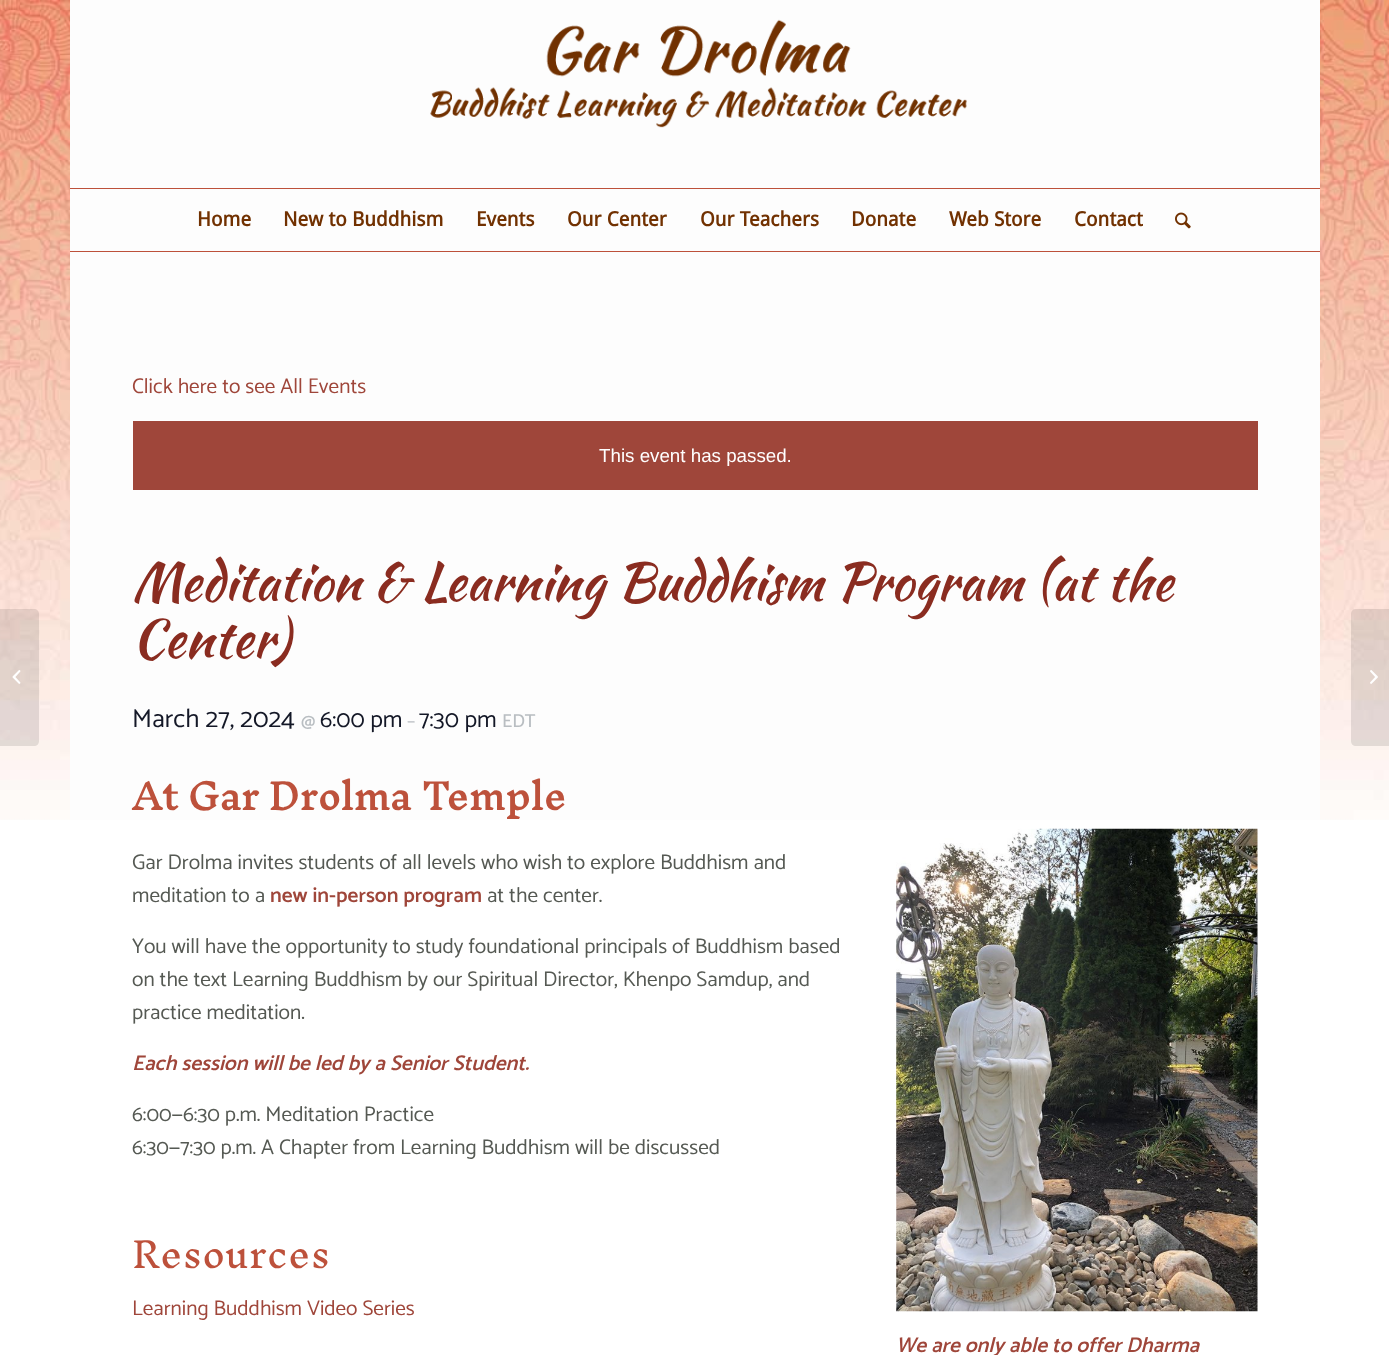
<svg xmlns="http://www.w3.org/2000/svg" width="1389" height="1355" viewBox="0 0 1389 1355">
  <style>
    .t1 { font: bold 20px Droid Sans; fill: #713101; }
    .t2 { font: 21.25px Catamaran; fill: #9f463a; }
    .t3 { font: 18.75px Liberation Sans; fill: #fff; }
    .t4 { font: 52.5px Kaushan Script; fill: #8a2c20; }
    .t5 { font: 26.25px Catamaran; fill: #141827; }
    .t6 { font: 500 18.75px Catamaran; fill: #b9bec2; }
    .t7 { font: 24px Catamaran; fill: #141827; }
    .t8 { font: bold 35px Inknut Antiqua; fill: #bd513b; }
    .t9 { font: 21.25px Catamaran; fill: #555953; }
    .t10 { font: 600 21.25px Catamaran; fill: #9f463a; }
    .t11 { font: italic 600 21.25px Catamaran; fill: #9f463a; }
    .t12 { font: 300 35px Inknut Antiqua; fill: #bd513b; }
  </style>
  <rect width="100%" height="100%" fill="#fff"/>
  <image x="0" y="0" width="1389" height="820" href="images/1.png"/>
  <rect x="70" y="0" width="1250" height="820" fill="#fdfdfd"/>
  <rect x="70" y="251" width="1250" height="1" fill="#bd513b"/>
  <image x="430" y="19" width="537" height="109" href="images/2.png"/>
  <rect x="70" y="188" width="1250" height="1" fill="#bd513b"/>
  <text x="197" y="226" class="t1">Home</text>
  <text x="283" y="226" class="t1">New to Buddhism</text>
  <text x="476" y="226" class="t1">Events</text>
  <text x="567" y="226" class="t1">Our Center</text>
  <text x="700" y="226" class="t1">Our Teachers</text>
  <text x="851" y="226" class="t1">Donate</text>
  <text x="949" y="226" class="t1">Web Store</text>
  <text x="1074" y="226" class="t1">Contact</text>
  <image x="1175" y="212" width="16" height="17" href="images/3.png"/>
  <path d="M0 609H34C37 609 39 611 39 614V741C39 744 37 746 34 746H0Z" fill="#0000001a"/>
  <image x="12" y="670" width="9" height="14" href="images/4.png"/>
  <text x="132" y="393" class="t2">Click here to see All Events</text>
  <rect x="133" y="421" width="1125" height="69" fill="#9f463a"/>
  <text x="599" y="462" class="t3">This event has passed.</text>
  <text x="132" y="600" class="t4">Meditation &amp; Learning Buddhism Program (at the</text>
  <text x="132" y="657" class="t4">Center)</text>
  <text x="132" y="727" class="t5">March 27, 2024</text>
  <text x="301" y="727" class="t6">@</text>
  <text x="320" y="727" class="t7">6:00 pm</text>
  <text x="407" y="727" class="t6">–</text>
  <text x="419" y="727" class="t7">7:30 pm</text>
  <text x="502" y="727" class="t6">EDT</text>
  <text x="132" y="810" class="t8">At Gar Drolma Temple</text>
  <text x="132" y="869" class="t9">Gar Drolma invites students of all levels who wish to explore Buddhism and</text>
  <text x="132" y="902" class="t9">meditation to a</text>
  <text x="270" y="902" class="t10">new in-person program</text>
  <text x="487" y="902" class="t9">‌at the center.</text>
  <text x="132" y="953" class="t9">You will have the opportunity to study foundational principals of Buddhism based</text>
  <text x="132" y="986" class="t9">on the text Learning Buddhism by our Spiritual Director, Khenpo Samdup, and</text>
  <text x="132" y="1019" class="t9">practice meditation.</text>
  <text x="132" y="1070" class="t11">Each session will be led by a Senior Student.</text>
  <text x="132" y="1121" class="t9">6:‌00—6‌:30 ‌p.m. Meditation Practice</text>
  <text x="132" y="1154" class="t9">‌6:3‌0—7‌:30 ‌p‌.m. A Chapter from Learning Buddhism will be discussed</text>
  <text x="132" y="1268" class="t12">Resources</text>
  <text x="132" y="1315" class="t2">Learning Buddhism Video Series</text>
  <image x="896" y="828" width="362" height="484" href="images/5.png"/>
  <text x="896" y="1352" class="t11">We are only able to offer Dharma</text>
  <path d="M1356 609H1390V746H1356C1353 746 1351 744 1351 741V614C1351 611 1353 609 1356 609Z" fill="#0000001a"/>
  <image x="1370" y="670" width="8" height="14" href="images/6.png"/>
</svg>
